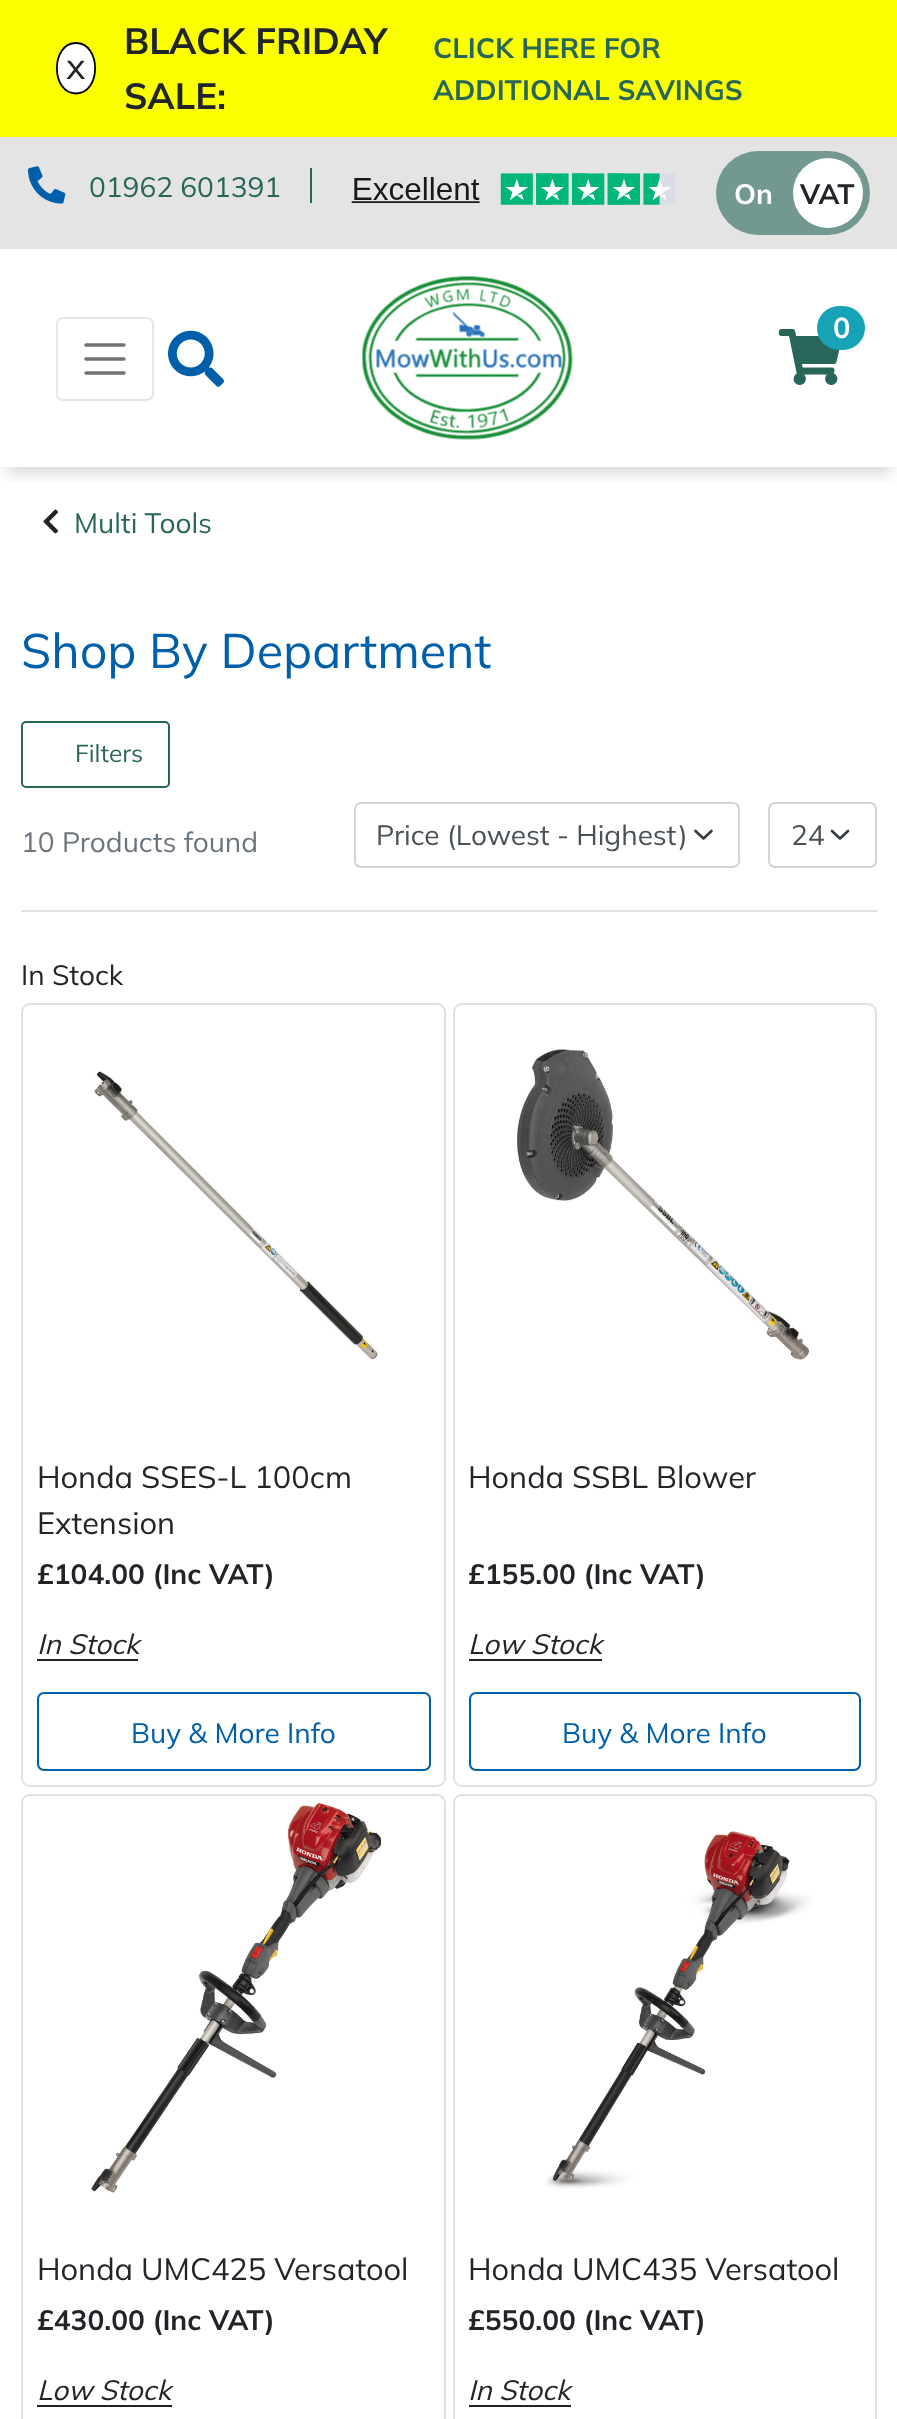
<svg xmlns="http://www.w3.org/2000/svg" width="897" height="2419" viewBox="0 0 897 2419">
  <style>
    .t1 { font: 36.5px Mulish; fill: #212529; }
    .t2 { font: bold 36.5px Mulish; fill: #212529; }
    .t3 { font: bold 28px Mulish; fill: #286659; }
    .t4 { font: 28px Mulish; fill: #286659; }
    .t5 { font: bold 28px Mulish; fill: #fff; }
    .t6 { font: bold 28px Mulish; fill: #212529; }
    .t7 { font: bold 29px Mulish; fill: #fff; }
    .t8 { font: 48.5px Mulish; fill: #005fab; }
    .t9 { font: 24.5px Mulish; fill: #286659; }
    .t10 { font: 28px Mulish; fill: #6c757d; }
    .t11 { font: 28px Mulish; fill: #495057; }
    .t12 { font: 28px Mulish; fill: #212529; }
    .t13 { font: 30.75px Mulish; fill: #212529; }
    .t14 { font: italic 28px Mulish; fill: #212529; }
    .t15 { font: 28px Mulish; fill: #005fab; }
  </style>
  <defs>
    <clipPath id="clip1"><rect x="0" y="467" width="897" height="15"/></clipPath>
  </defs>
  <rect width="100%" height="100%" fill="#fff"/>
  <rect x="0" y="0" width="897" height="137" fill="#fbff00"/>
  <ellipse cx="76" cy="68" rx="20" ry="26" fill="#fff"/>
  <path d="M76 43C101.5 43 101.5 93.5 76 93.5C50.5 93.5 50.5 43 76 43Z" fill="none" stroke="#000" stroke-width="1.8"/>
  <text x="66" y="79" class="t1">x</text>
  <text x="124" y="54" class="t2">BLACK FRIDAY</text>
  <text x="124" y="109" class="t2">SALE:</text>
  <text x="433" y="58" class="t3">CLICK HERE FOR</text>
  <text x="433" y="100" class="t3">ADDITIONAL SAVINGS</text>
  <rect x="0" y="137" width="897" height="112" fill="#e4e4e4"/>
  <image x="28" y="166" width="38" height="38" href="images/1.png"/>
  <text x="89" y="197" class="t4">01962 601391</text>
  <rect x="310" y="168" width="2" height="35" fill="#286659"/>
  <image x="351" y="173" width="324" height="32" href="images/2.png"/>
  <rect x="716" y="151" width="154" height="84" rx="42" fill="#739891"/>
  <text x="734" y="204" class="t5">On</text>
  <circle cx="828" cy="193" r="35" fill="#fff"/>
  <text x="800" y="204" class="t6">VAT</text>
  <g clip-path="url(#clip1)">
    <rect x="7" y="270" width="884" height="204" fill="#00000026" filter="blur(7px)"/>
  </g>
  <rect x="57" y="318" width="96" height="82" rx="6" fill="none" stroke="#e6e6e6" stroke-width="2"/>
  <path d="M86 345H124M86 359H124M86 373H124" fill="none" stroke="#737373" stroke-width="3.5" stroke-linecap="round"/>
  <image x="168" y="330" width="56" height="57" href="images/3.png"/>
  <image x="362" y="276" width="211" height="164" href="images/4.png"/>
  <image x="778" y="329" width="62" height="56" href="images/5.png"/>
  <rect x="817" y="306" width="48" height="44" rx="22" fill="#17a2b8"/>
  <text x="833" y="338" class="t7">0</text>
  <image x="43" y="509" width="15" height="25" href="images/6.png"/>
  <text x="74" y="533" class="t4">Multi Tools</text>
  <text x="21" y="668" class="t8">Shop By Department</text>
  <rect x="21" y="910" width="856" height="2" fill="#dee2e6"/>
  <rect x="22" y="722" width="147" height="65" rx="4" fill="none" stroke="#286659" stroke-width="2"/>
  <text x="75" y="762" class="t9">Filters</text>
  <text x="21" y="852" class="t10">10 Products found</text>
  <path d="M695.5 831L703.5 838.5L711.5 831" fill="none" stroke="#343a40" stroke-width="2.6" stroke-linecap="round" stroke-linejoin="round"/>
  <rect x="355" y="803" width="384" height="64" rx="6" fill="none" stroke="#ced4da" stroke-width="2"/>
  <text x="376" y="845" class="t11">Price (Lowest - Highest)</text>
  <path d="M832 831L840 838.5L848 831" fill="none" stroke="#343a40" stroke-width="2.6" stroke-linecap="round" stroke-linejoin="round"/>
  <rect x="769" y="803" width="107" height="64" rx="6" fill="none" stroke="#ced4da" stroke-width="2"/>
  <text x="791" y="845" class="t11">24</text>
  <text x="21" y="985" class="t12">In Stock</text>
  <rect x="22" y="1004" width="423" height="782" rx="8" fill="none" stroke="#dee2e6" stroke-width="2"/>
  <image x="94" y="1071" width="284" height="289" href="images/7.png"/>
  <text x="37" y="1488" class="t13">Honda SSES-L 100cm</text>
  <text x="37" y="1534" class="t13">Extension</text>
  <text x="37" y="1584" class="t6">£104.00 (Inc VAT)</text>
  <text x="37" y="1654" class="t14">In Stock</text>
  <rect x="37" y="1659" width="101" height="2" fill="#212529"/>
  <rect x="38" y="1693" width="392" height="77" rx="6" fill="none" stroke="#005fab" stroke-width="2"/>
  <text x="131" y="1743" class="t15">Buy &amp; More Info</text>
  <rect x="454" y="1004" width="422" height="782" rx="8" fill="none" stroke="#dee2e6" stroke-width="2"/>
  <image x="517" y="1049" width="293" height="311" href="images/8.png"/>
  <text x="468" y="1488" class="t13">Honda SSBL Blower</text>
  <text x="468" y="1584" class="t6">£155.00 (Inc VAT)</text>
  <text x="468" y="1654" class="t14">Low Stock</text>
  <rect x="469" y="1659" width="133" height="2" fill="#212529"/>
  <rect x="470" y="1693" width="390" height="77" rx="6" fill="none" stroke="#005fab" stroke-width="2"/>
  <text x="562" y="1743" class="t15">Buy &amp; More Info</text>
  <rect x="22" y="1795" width="423" height="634" rx="8" fill="none" stroke="#dee2e6" stroke-width="2"/>
  <image x="91" y="1803" width="291" height="390" href="images/9.png"/>
  <text x="37" y="2280" class="t13">Honda UMC425 Versatool</text>
  <text x="37" y="2330" class="t6">£430.00 (Inc VAT)</text>
  <text x="37" y="2400" class="t14">Low Stock</text>
  <rect x="37" y="2405" width="135" height="2" fill="#212529"/>
  <rect x="454" y="1795" width="422" height="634" rx="8" fill="none" stroke="#dee2e6" stroke-width="2"/>
  <image x="544" y="1831" width="269" height="358" href="images/10.png"/>
  <text x="468" y="2280" class="t13">Honda UMC435 Versatool</text>
  <text x="468" y="2330" class="t6">£550.00 (Inc VAT)</text>
  <text x="468" y="2400" class="t14">In Stock</text>
  <rect x="469" y="2405" width="102" height="2" fill="#212529"/>
</svg>
